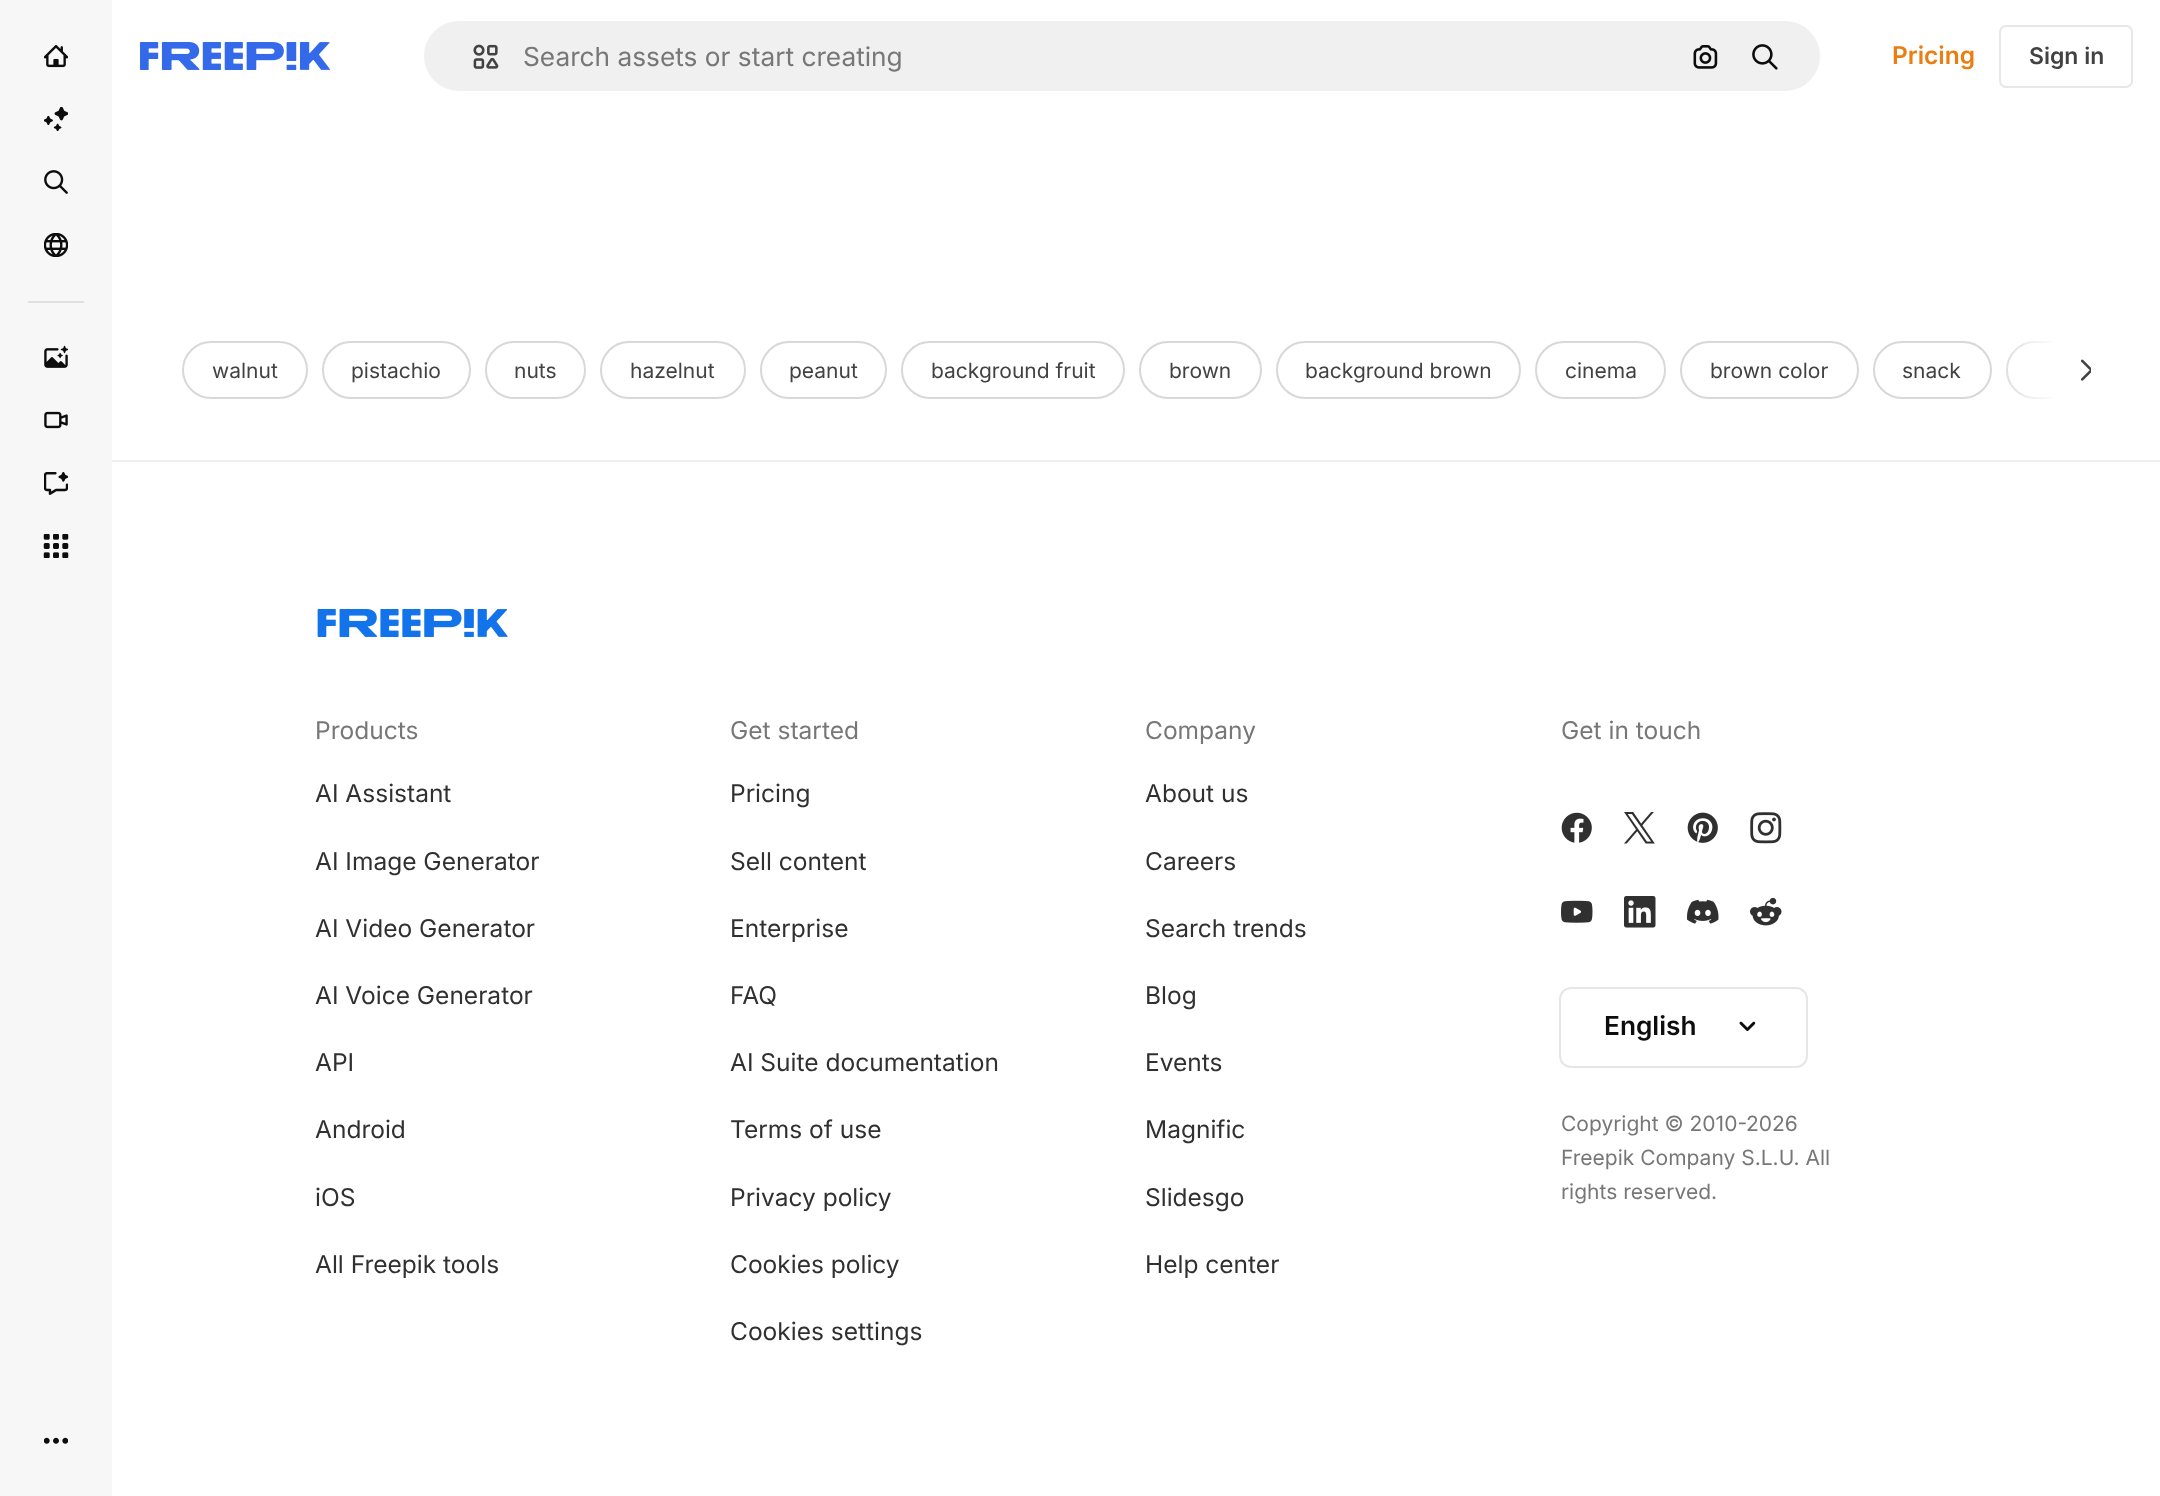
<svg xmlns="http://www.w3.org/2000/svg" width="2160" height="1496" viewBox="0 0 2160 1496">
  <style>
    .t1 { font: 26.25px Inter; fill: #777; }
    .t2 { font: 600 24.5px Inter; fill: #ea7e11; }
    .t3 { font: 600 23px Inter; fill: #424242; }
    .t4 { font: 21px Inter; fill: #424242; }
    .t5 { font: 24.5px Inter; fill: #777; }
    .t6 { font: 24.5px Inter; fill: #303030; }
    .t7 { font: 600 26.25px Inter; fill: #0d0d0d; }
    .t8 { font: 21px Inter; fill: #777; }
  </style>
  <defs>
    <clipPath id="clip1"><rect x="182" y="341" width="1909" height="58"/></clipPath>
    <linearGradient id="g1" gradientUnits="userSpaceOnUse" x1="2056" y1="370" x2="1995" y2="370"><stop offset="0" stop-color="#fff"/><stop offset="1" stop-color="#fff" stop-opacity="0"/></linearGradient>
  </defs>
  <rect width="100%" height="100%" fill="#fff"/>
  <rect x="0" y="0" width="112" height="1496" fill="#f7f7f7"/>
  <image x="44" y="45" width="24" height="23" href="images/1.png"/>
  <image x="44" y="107" width="24" height="24" href="images/2.png"/>
  <image x="44" y="170" width="24" height="24" href="images/3.png"/>
  <image x="44" y="233" width="24" height="24" href="images/4.png"/>
  <rect x="28" y="301" width="56" height="2" fill="#e0e0e0"/>
  <image x="44" y="345" width="24" height="23" href="images/5.png"/>
  <image x="44" y="411" width="24" height="18" href="images/6.png"/>
  <image x="44" y="472" width="24" height="23" href="images/7.png"/>
  <image x="43" y="534" width="26" height="24" href="images/8.png"/>
  <image x="44" y="1437" width="24" height="7" href="images/9.png"/>
  <image x="140" y="42" width="190" height="28" href="images/10.png"/>
  <rect x="423" y="20" width="1398" height="72" rx="36" fill="#f0f0f0" stroke="#fff" stroke-width="2"/>
  <image x="473" y="44" width="26" height="25" href="images/11.png"/>
  <text x="523" y="66" class="t1">Search assets or start creating</text>
  <image x="1693" y="45" width="25" height="24" href="images/12.png"/>
  <image x="1752" y="44" width="26" height="26" href="images/13.png"/>
  <text x="1892" y="64" class="t2">Pricing</text>
  <rect x="2000" y="26" width="132" height="61" rx="6" fill="none" stroke="#e7e7e7" stroke-width="2"/>
  <text x="2029" y="64" class="t3">Sign in</text>
  <rect x="183" y="342" width="124" height="56" rx="28" fill="none" stroke="#d8d8d8" stroke-width="2"/>
  <text x="212" y="378" class="t4">walnut</text>
  <rect x="323" y="342" width="147" height="56" rx="28" fill="none" stroke="#d8d8d8" stroke-width="2"/>
  <text x="351" y="378" class="t4">pistachio</text>
  <rect x="486" y="342" width="99" height="56" rx="28" fill="none" stroke="#d8d8d8" stroke-width="2"/>
  <text x="514" y="378" class="t4">nuts</text>
  <rect x="601" y="342" width="144" height="56" rx="28" fill="none" stroke="#d8d8d8" stroke-width="2"/>
  <text x="630" y="378" class="t4">hazelnut</text>
  <rect x="761" y="342" width="125" height="56" rx="28" fill="none" stroke="#d8d8d8" stroke-width="2"/>
  <text x="789" y="378" class="t4">peanut</text>
  <rect x="902" y="342" width="222" height="56" rx="28" fill="none" stroke="#d8d8d8" stroke-width="2"/>
  <text x="931" y="378" class="t4">background fruit</text>
  <rect x="1140" y="342" width="121" height="56" rx="28" fill="none" stroke="#d8d8d8" stroke-width="2"/>
  <text x="1169" y="378" class="t4">brown</text>
  <rect x="1277" y="342" width="243" height="56" rx="28" fill="none" stroke="#d8d8d8" stroke-width="2"/>
  <text x="1305" y="378" class="t4">background brown</text>
  <rect x="1536" y="342" width="129" height="56" rx="28" fill="none" stroke="#d8d8d8" stroke-width="2"/>
  <text x="1565" y="378" class="t4">cinema</text>
  <rect x="1681" y="342" width="177" height="56" rx="28" fill="none" stroke="#d8d8d8" stroke-width="2"/>
  <text x="1710" y="378" class="t4">brown color</text>
  <rect x="1874" y="342" width="117" height="56" rx="28" fill="none" stroke="#d8d8d8" stroke-width="2"/>
  <text x="1902" y="378" class="t4">snack</text>
  <g clip-path="url(#clip1)">
    <rect x="2007" y="342" width="117" height="56" rx="28" fill="none" stroke="#d8d8d8" stroke-width="2"/>
  </g>
  <rect x="2056" y="341" width="35" height="58" fill="#fff"/>
  <rect x="2006" y="341" width="50" height="58" fill="url(#g1)"/>
  <image x="2081" y="359" width="10" height="22" href="images/14.png"/>
  <rect x="112" y="460" width="2048" height="2" fill="#f0f0f0"/>
  <image x="317" y="609" width="191" height="28" href="images/15.png"/>
  <text x="315" y="739" class="t5">Products</text>
  <text x="315" y="802" class="t6">AI Assistant</text>
  <text x="315" y="870" class="t6">AI Image Generator</text>
  <text x="315" y="937" class="t6">AI Video Generator</text>
  <text x="315" y="1004" class="t6">AI Voice Generator</text>
  <text x="315" y="1071" class="t6">API</text>
  <text x="315" y="1138" class="t6">Android</text>
  <text x="315" y="1206" class="t6">iOS</text>
  <text x="315" y="1273" class="t6">All Freepik tools</text>
  <text x="730" y="739" class="t5">Get started</text>
  <text x="730" y="802" class="t6">Pricing</text>
  <text x="730" y="870" class="t6">Sell content</text>
  <text x="730" y="937" class="t6">Enterprise</text>
  <text x="730" y="1004" class="t6">FAQ</text>
  <text x="730" y="1071" class="t6">AI Suite documentation</text>
  <text x="730" y="1138" class="t6">Terms of use</text>
  <text x="730" y="1206" class="t6">Privacy policy</text>
  <text x="730" y="1273" class="t6">Cookies policy</text>
  <text x="730" y="1340" class="t6">Cookies settings</text>
  <text x="1145" y="739" class="t5">Company</text>
  <text x="1145" y="802" class="t6">About us</text>
  <text x="1145" y="870" class="t6">Careers</text>
  <text x="1145" y="937" class="t6">Search trends</text>
  <text x="1145" y="1004" class="t6">Blog</text>
  <text x="1145" y="1071" class="t6">Events</text>
  <text x="1145" y="1138" class="t6">Magnific</text>
  <text x="1145" y="1206" class="t6">Slidesgo</text>
  <text x="1145" y="1273" class="t6">Help center</text>
  <text x="1561" y="739" class="t5">Get in touch</text>
  <image x="1561" y="812" width="31" height="31" href="images/16.png"/>
  <image x="1624" y="812" width="31" height="32" href="images/17.png"/>
  <image x="1687" y="812" width="31" height="31" href="images/18.png"/>
  <image x="1750" y="812" width="32" height="32" href="images/19.png"/>
  <image x="1561" y="900" width="32" height="23" href="images/20.png"/>
  <image x="1624" y="896" width="32" height="32" href="images/21.png"/>
  <image x="1687" y="899" width="32" height="25" href="images/22.png"/>
  <image x="1750" y="897" width="32" height="29" href="images/23.png"/>
  <rect x="1560" y="988" width="247" height="79" rx="11" fill="none" stroke="#e6e6e6" stroke-width="2"/>
  <text x="1604" y="1035" class="t7">English</text>
  <image x="1739" y="1021" width="17" height="10" href="images/24.png"/>
  <text x="1561" y="1131" class="t8">Copyright © 2010-</text>
  <text x="1746" y="1131" class="t8">2026</text>
  <text x="1561" y="1165" class="t8">Freepik Company S.L.U. All</text>
  <text x="1561" y="1199" class="t8">rights reserved.</text>
</svg>
